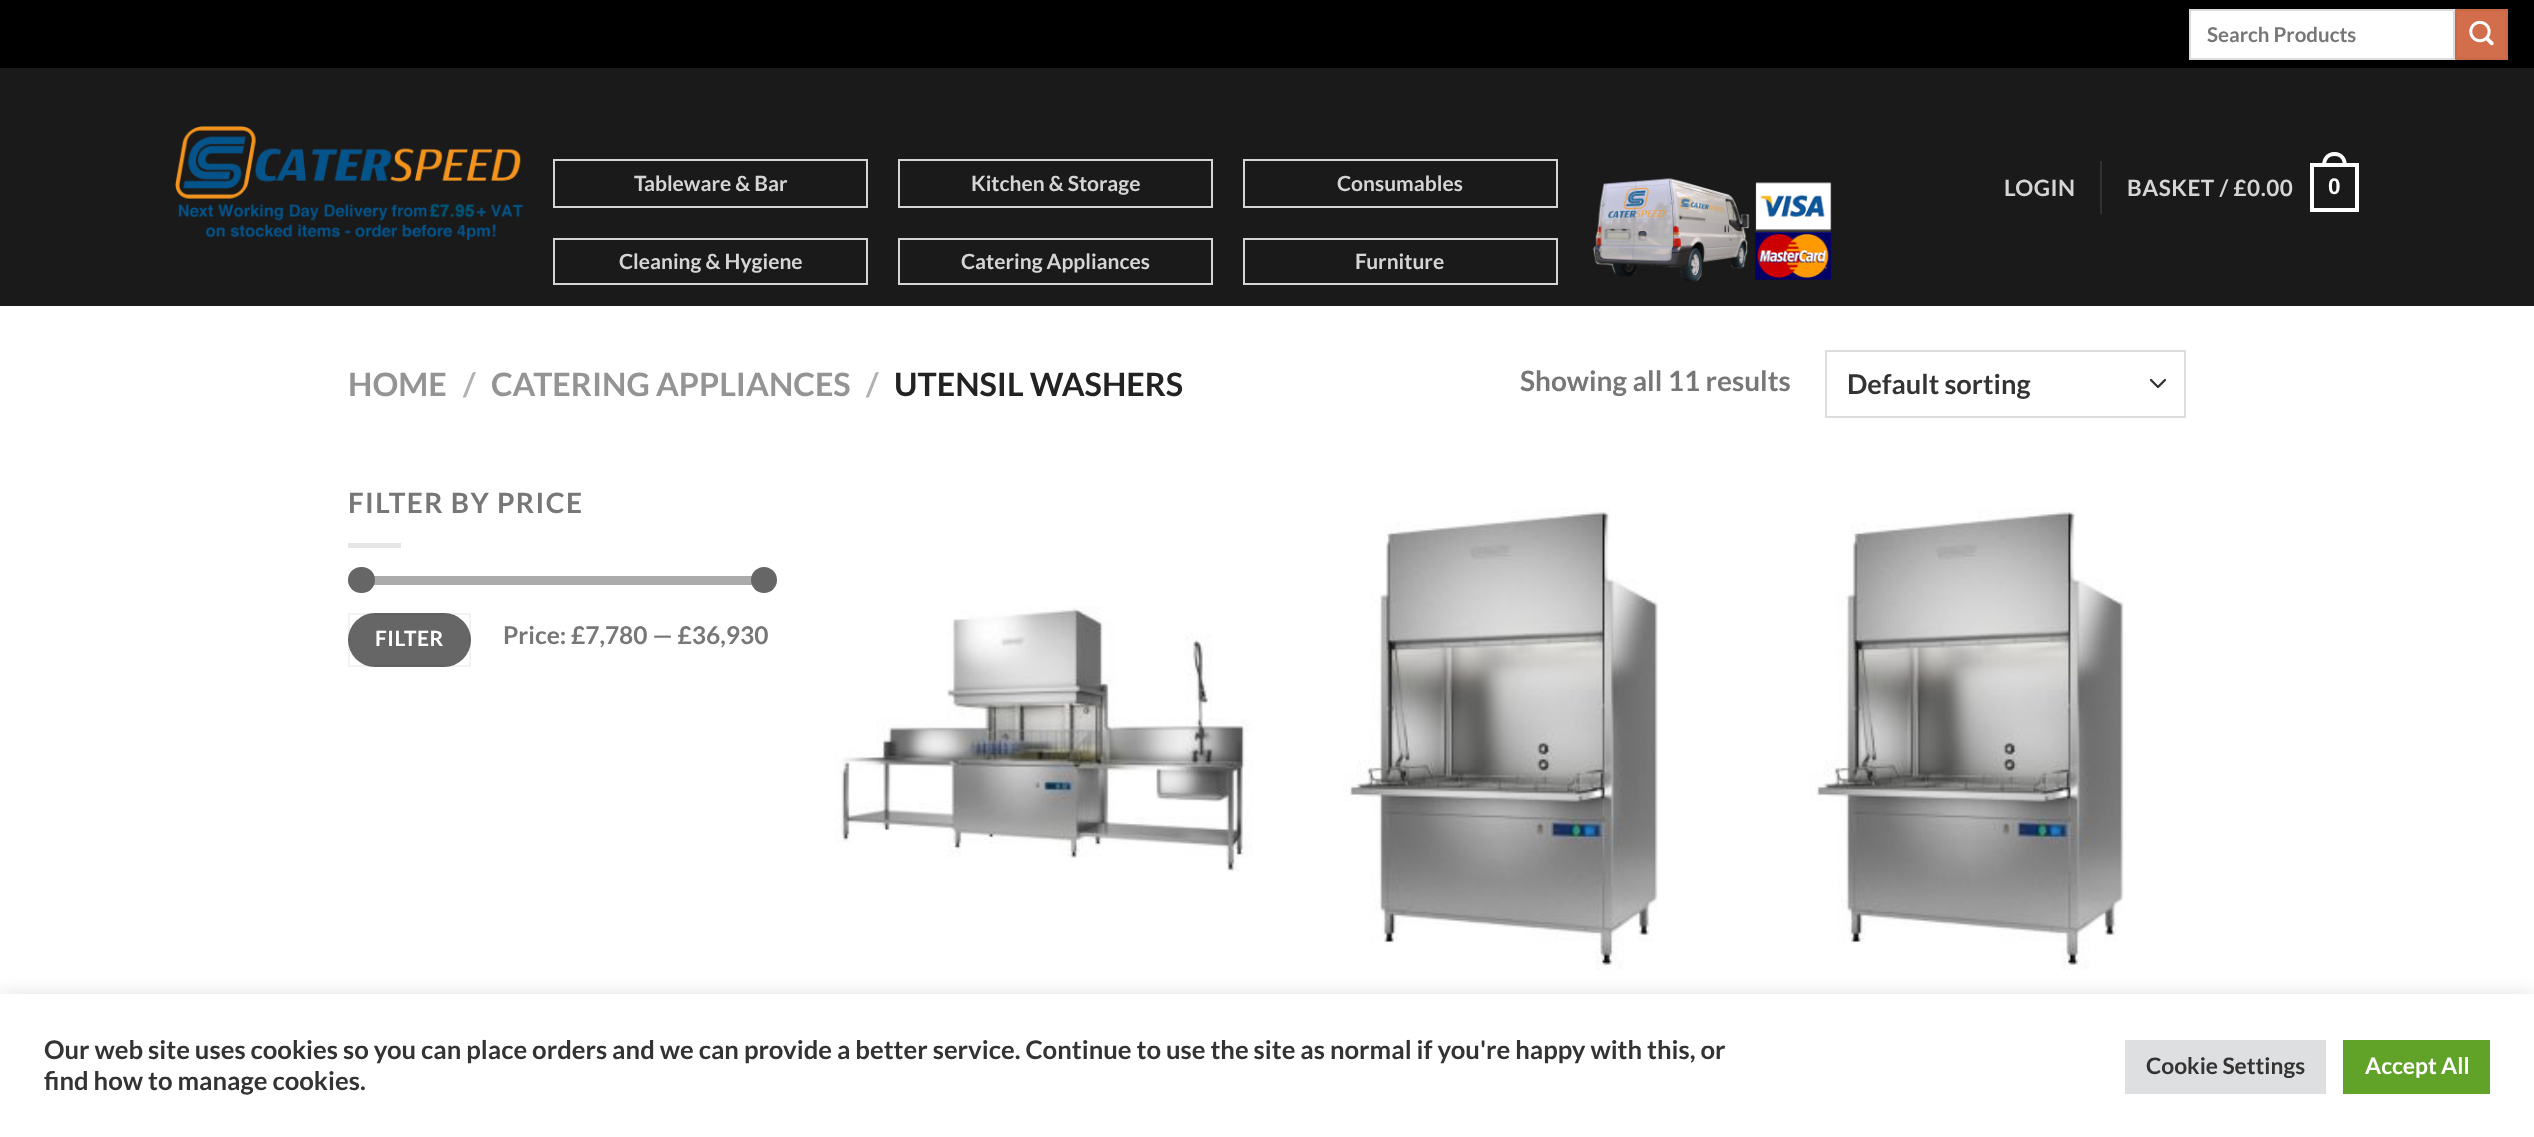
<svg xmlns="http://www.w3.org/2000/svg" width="2534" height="1137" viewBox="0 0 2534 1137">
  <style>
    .t1 { font: bold 20.5px Lato; fill: #777; }
    .t2 { font: bold 21px Lato; fill: #d5d5d5; }
    .t3 { font: bold 22.5px Lato; letter-spacing: 0.5px; fill: #d5d5d5; }
    .t4 { font: bold 22.5px Liberation Sans; letter-spacing: 0.5px; fill: #fff; }
    .t5 { font: bold 32.25px Lato; fill: #949494; }
    .t6 { font: bold 32.25px Lato; fill: #b2b2b2; }
    .t7 { font: bold 32.25px Lato; fill: #222; }
    .t8 { font: bold 28px Lato; fill: #777; }
    .t9 { font: bold 27.25px Lato; fill: #333; }
    .t10 { font: bold 28px Lato; letter-spacing: 1.4px; fill: #777; }
    .t11 { font: bold 21px Lato; letter-spacing: 0.5px; fill: #fff; }
    .t12 { font: bold 24.5px Lato; fill: #777; }
    .t13 { font: bold 25.67px Lato; fill: #333; }
    .t14 { font: bold 22.75px Lato; fill: #333; }
    .t15 { font: bold 22.75px Lato; fill: #fff; }
  </style>
  <rect width="100%" height="100%" fill="#fff"/>
  <rect x="0" y="0" width="2534" height="68" fill="#000"/>
  <rect x="2190" y="10" width="264" height="49" fill="#fff" stroke="#ddd" stroke-width="2"/>
  <text x="2207" y="42" class="t1">Search Products</text>
  <rect x="2456" y="10" width="51" height="49" fill="#d26e4b" stroke="#c86947" stroke-width="2"/>
  <image x="2469" y="20" width="25" height="26" href="images/1.png"/>
  <rect x="0" y="68" width="2534" height="238" fill="#1a1a1a"/>
  <image x="175" y="126" width="349" height="114" href="images/2.png"/>
  <rect x="554" y="160" width="313" height="47" fill="none" stroke="#d5d5d5" stroke-width="2"/>
  <text x="634" y="191" class="t2">Tableware &amp; Bar</text>
  <rect x="899" y="160" width="313" height="47" fill="none" stroke="#d5d5d5" stroke-width="2"/>
  <text x="971" y="191" class="t2">Kitchen &amp; Storage</text>
  <rect x="1244" y="160" width="313" height="47" fill="none" stroke="#d5d5d5" stroke-width="2"/>
  <text x="1337" y="191" class="t2">Consumables</text>
  <rect x="554" y="239" width="313" height="45" fill="none" stroke="#d5d5d5" stroke-width="2"/>
  <text x="619" y="269" class="t2">Cleaning &amp; Hygiene</text>
  <rect x="899" y="239" width="313" height="45" fill="none" stroke="#d5d5d5" stroke-width="2"/>
  <text x="961" y="269" class="t2">Catering Appliances</text>
  <rect x="1244" y="239" width="313" height="45" fill="none" stroke="#d5d5d5" stroke-width="2"/>
  <text x="1355" y="269" class="t2">Furniture</text>
  <image x="1592" y="178" width="240" height="104" href="images/3.png"/>
  <text x="2004" y="196" class="t3">LOGIN</text>
  <rect x="2100" y="161" width="2" height="53" fill="#313131"/>
  <text x="2127" y="196" class="t3">BASKET / £0.00</text>
  <rect x="2312" y="165" width="45" height="45" fill="none" stroke="#fff" stroke-width="4"/>
  <path d="M2334.5 152C2343 152 2347 158.5 2347 166H2322C2322 158.5 2326 152 2334.5 152ZM2334.5 156C2341 156 2343 160.5 2343 166H2326C2326 160.5 2328 156 2334.5 156Z" fill="#fff" fill-rule="evenodd"/>
  <text x="2328" y="194" class="t4">0</text>
  <text x="348" y="396" class="t5">HOME</text>
  <text x="463" y="396" class="t6">/</text>
  <text x="491" y="396" class="t5">CATERING APPLIANCES</text>
  <text x="866" y="396" class="t6">/</text>
  <text x="894" y="396" class="t7">UTENSIL WASHERS</text>
  <text x="1520" y="391" class="t8">Showing all 11 results</text>
  <path d="M2151 380L2158 387L2165 380" fill="none" stroke="#333" stroke-width="2.3" stroke-linecap="round" stroke-linejoin="round"/>
  <rect x="1826" y="351" width="359" height="66" fill="none" stroke="#ddd" stroke-width="2"/>
  <text x="1847" y="394" class="t9">Default sorting</text>
  <text x="348" y="513" class="t10">FILTER BY PRICE</text>
  <rect x="348" y="543" width="53" height="5" fill="#e6e6e6"/>
  <rect x="348" y="576" width="420" height="9" rx="4.5" fill="#f1f1f1"/>
  <rect x="348" y="576" width="420" height="9" rx="4.5" fill="#66666680"/>
  <rect x="348" y="567" width="27" height="26" rx="13" fill="#666"/>
  <circle cx="764" cy="580" r="13" fill="#666"/>
  <rect x="348" y="613" width="123" height="54" rx="27" fill="#666"/>
  <rect x="349" y="614" width="121" height="52" fill="none" stroke="#0000000d" stroke-width="2"/>
  <text x="375" y="646" class="t11">FILTER</text>
  <text x="503" y="644" class="t12">Price: £7,780 — £36,930</text>
  <image x="835" y="606" width="418" height="266" href="images/4.png"/>
  <image x="1343" y="508" width="315" height="462" href="images/5.png"/>
  <image x="1810" y="508" width="314" height="462" href="images/6.png"/>
  <rect x="0" y="992" width="2534" height="144" fill="#acabab4d" filter="blur(9px)"/>
  <rect x="0" y="994" width="2534" height="143" fill="#fff"/>
  <text x="44" y="1059" class="t13">Our web site uses cookies so you can place orders and we can provide a better service. Continue to use the site as normal if you're happy with this, or</text>
  <text x="44" y="1090" class="t13">find how to manage cookies.</text>
  <rect x="2125" y="1040" width="201" height="54" fill="#dedfe0"/>
  <text x="2146" y="1074" class="t14">Cookie Settings</text>
  <rect x="2343" y="1040" width="147" height="54" fill="#61a229"/>
  <text x="2365" y="1074" class="t15">Accept All</text>
</svg>
